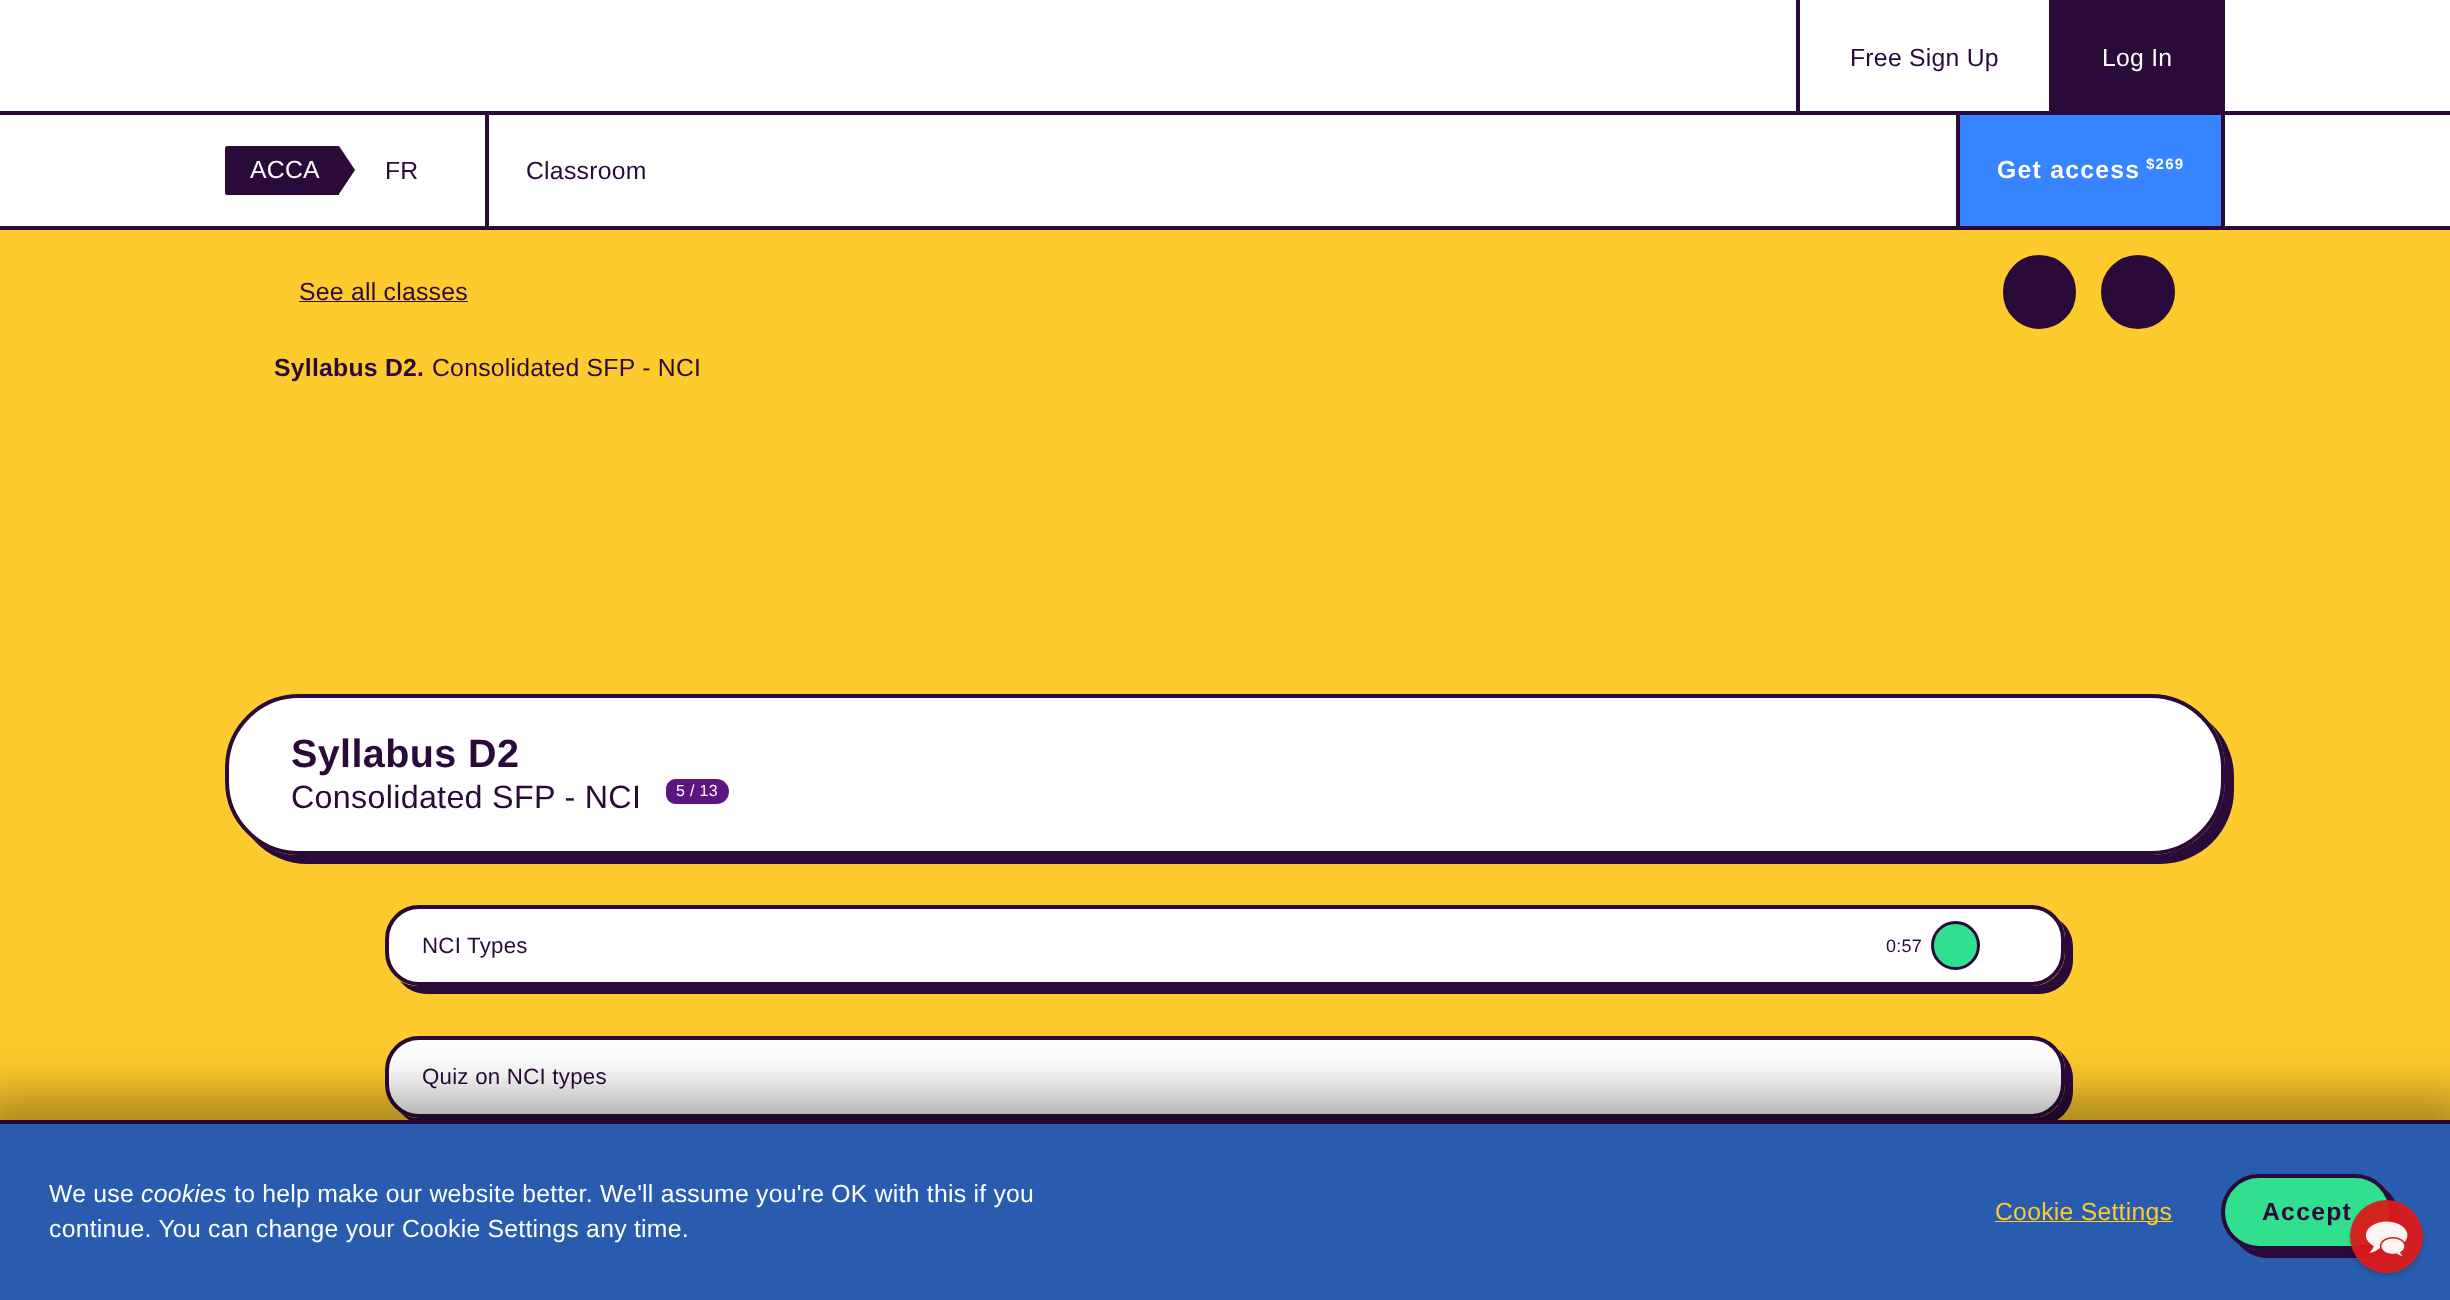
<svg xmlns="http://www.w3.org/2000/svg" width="2450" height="1300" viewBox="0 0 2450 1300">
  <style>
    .t1 { font: 24.75px Liberation Sans; letter-spacing: 0.25px; fill: #2a0a39; }
    .t2 { font: 24.75px Liberation Sans; letter-spacing: 0.25px; fill: #fff; }
    .t3 { font: bold 24.75px Liberation Sans; letter-spacing: 1.25px; fill: #fff; }
    .t4 { font: bold 15px Liberation Sans; letter-spacing: 1.25px; fill: #fff; }
    .t5 { font: bold 24.75px Liberation Sans; letter-spacing: 0.25px; fill: #2a0a39; }
    .t6 { font: bold 39.5px Liberation Sans; letter-spacing: 0.4px; fill: #2a0a39; }
    .t7 { font: 32.25px Liberation Sans; letter-spacing: 0.3px; fill: #2a0a39; }
    .t8 { font: 16px Liberation Sans; letter-spacing: 0.3px; fill: #fff; }
    .t9 { font: 22.25px Liberation Sans; letter-spacing: 0.25px; fill: #2a0a39; }
    .t10 { font: 18px Liberation Sans; letter-spacing: 0.25px; fill: #2a0a39; }
    .t11 { font: italic 24.75px Liberation Sans; letter-spacing: 0.25px; fill: #fff; }
    .t12 { font: 24.75px Liberation Sans; letter-spacing: 0.25px; fill: #fecb2e; }
    .t13 { font: bold 24.75px Liberation Sans; letter-spacing: 1.25px; fill: #2a0a39; }
  </style>
  <defs>
    <clipPath id="clip1"><path d="M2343 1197H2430V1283H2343ZM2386.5 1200C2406.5 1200 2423 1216.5 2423 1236.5C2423 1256.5 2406.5 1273 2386.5 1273C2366.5 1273 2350 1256.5 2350 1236.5C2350 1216.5 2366.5 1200 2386.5 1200Z" clip-rule="evenodd"/></clipPath>
  </defs>
  <rect width="100%" height="100%" fill="#fff"/>
  <rect x="0" y="111" width="2450" height="4" fill="#2a0a39"/>
  <rect x="1796" y="0" width="4" height="111" fill="#2a0a39"/>
  <text x="1850" y="66" class="t1">Free Sign Up</text>
  <rect x="2049" y="0" width="176" height="111" fill="#2a0a39"/>
  <text x="2102" y="66" class="t2">Log In</text>
  <rect x="0" y="226" width="2450" height="4" fill="#2a0a39"/>
  <path d="M227 146H339V195H227C226 195 225 194 225 193V149C225 147 226 146 227 146Z" fill="#2a0a39"/>
  <text x="250" y="178" class="t2">ACCA</text>
  <path d="M339 194V146L355 170Z" fill="#2a0a39"/>
  <text x="385" y="179" class="t1">FR</text>
  <rect x="485" y="115" width="4" height="111" fill="#2a0a39"/>
  <text x="526" y="179" class="t1">Classroom</text>
  <rect x="1960" y="115" width="261" height="111" fill="#3684ff"/>
  <rect x="2221" y="115" width="4" height="111" fill="#2a0a39"/>
  <rect x="1956" y="115" width="4" height="111" fill="#2a0a39"/>
  <text x="1997" y="178" class="t3">Get access</text>
  <text x="2146" y="169" class="t4">$269</text>
  <rect x="0" y="230" width="2450" height="890" fill="#fecb2e"/>
  <text x="299" y="300" class="t1">See all classes</text>
  <rect x="299" y="301" width="169" height="1" fill="#2a0a39"/>
  <rect x="2004.5" y="256.5" width="70" height="71" rx="35" fill="#2a0a39" stroke="#2a0a39" stroke-width="3"/>
  <circle cx="2138" cy="292" r="35.5" fill="#2a0a39" stroke="#2a0a39" stroke-width="3"/>
  <text x="274" y="376" class="t5">Syllabus D2.</text>
  <text x="432" y="376" class="t1">Consolidated SFP - NCI</text>
  <path d="M251 837C265 854 285 864 308 864H2160C2201 864 2234 831 2234 790V777C2234 754 2224 734 2208 721C2219 733 2225 750 2225 768V781C2225 822 2192 855 2151 855H299C281 855 264 848 251 837Z" fill="#2a0a39"/>
  <rect x="227" y="696" width="1996" height="157" rx="72" fill="#fff" stroke="#2a0a39" stroke-width="4"/>
  <text x="291" y="767" class="t6">Syllabus D2</text>
  <text x="291" y="808" class="t7">Consolidated SFP - NCI</text>
  <path d="M675.5 779H685V804H675.5C670.5 804 666 799.5 666 794.5V788.5C666 783.5 670.5 779 675.5 779Z" fill="#5d167e"/>
  <rect x="685" y="779" width="15" height="25" fill="#5d167e"/>
  <path d="M700 779H716.5C723.5 779 729 784.5 729 791.5C729 798.5 723.5 804 716.5 804H700Z" fill="#5d167e"/>
  <text x="676" y="796" class="t8">5 / 13</text>
  <path d="M400 981C406 989 416 994 427 994H2039C2058 994 2073 979 2073 960V947C2073 936 2068 926 2059 920C2063 925 2065 931 2065 938V953C2065 971 2050 986 2032 986H418C412 986 405 984 400 981Z" fill="#2a0a39"/>
  <rect x="387" y="907" width="1676" height="77" rx="32" fill="#fff" stroke="#2a0a39" stroke-width="4"/>
  <text x="422" y="953" class="t9">NCI Types</text>
  <text x="1886" y="952" class="t10">0:57</text>
  <circle cx="1955.5" cy="945.5" r="23" fill="#31e08e" stroke="#2a0a39" stroke-width="3"/>
  <path d="M400 1112C407 1120 416 1125 427 1125H2039C2058 1125 2073 1110 2073 1091V1078C2073 1067 2067 1057 2059 1050C2063 1056 2065 1063 2065 1070V1084C2065 1103 2050 1118 2032 1118H418C412 1118 406 1116 400 1112Z" fill="#2a0a39"/>
  <rect x="387" y="1038" width="1676" height="78" rx="32" fill="#fff" stroke="#2a0a39" stroke-width="4"/>
  <text x="422" y="1084" class="t9">Quiz on NCI types</text>
  <rect x="-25" y="1095" width="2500" height="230" fill="#00000059" filter="blur(25px)"/>
  <rect x="0" y="1124" width="2450" height="176" fill="#295cae"/>
  <rect x="0" y="1120" width="2450" height="4" fill="#2a0a39"/>
  <text x="49" y="1202" class="t2">We use</text>
  <text x="141" y="1202" class="t11">cookies</text>
  <text x="234" y="1202" class="t2">to help make our website better. We'll assume you're OK with this if you</text>
  <text x="49" y="1237" class="t2">continue. You can change your Cookie Settings any time.</text>
  <rect x="1995" y="1221" width="178" height="1" fill="#fecb2e"/>
  <text x="1995" y="1220" class="t12">Cookie Settings</text>
  <path d="M2237 1242C2244 1252 2255 1258 2268 1258H2362C2383 1258 2400 1241 2400 1220C2400 1207 2394 1196 2385 1189C2390 1195 2392 1203 2392 1212C2392 1233 2375 1250 2354 1250H2259C2251 1250 2243 1247 2237 1242Z" fill="#2a0a39"/>
  <rect x="2223" y="1176" width="168" height="72" rx="36" fill="#31e08e" stroke="#2a0a39" stroke-width="4"/>
  <text x="2262" y="1220" class="t13">Accept</text>
  <g clip-path="url(#clip1)">
    <rect x="2350" y="1204" width="73" height="72" rx="36" fill="#00000030" filter="blur(2px)"/>
  </g>
  <circle cx="2386.5" cy="1236.5" r="36.5" fill="#db1a1af2"/>
  <image x="2366" y="1221" width="42" height="35" href="images/1.png"/>
</svg>
